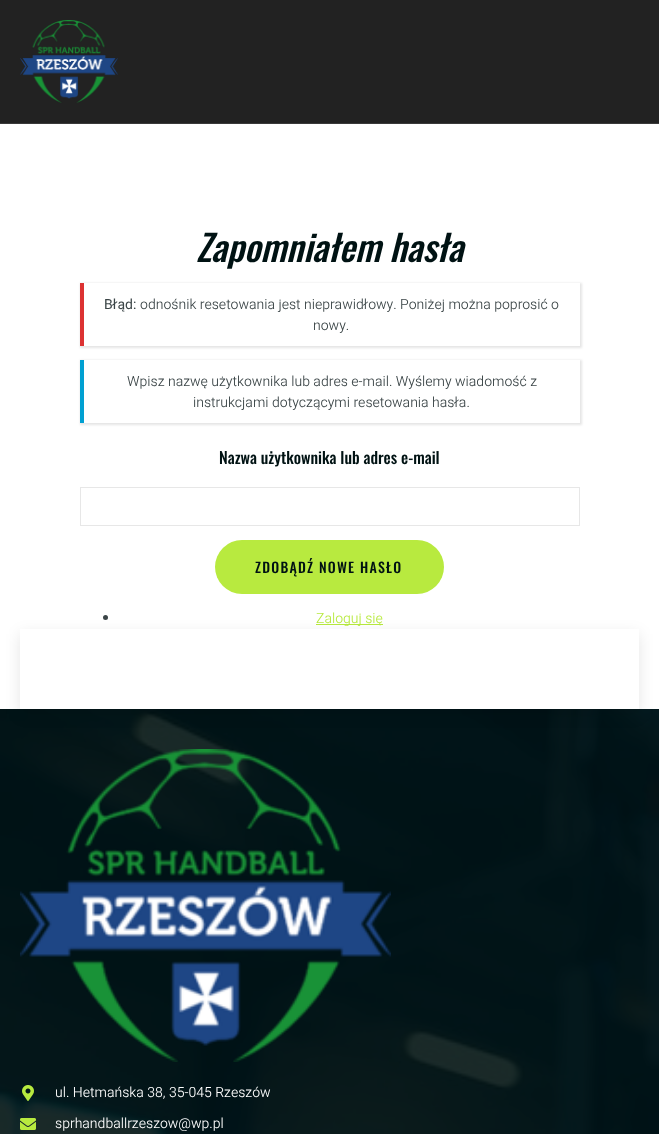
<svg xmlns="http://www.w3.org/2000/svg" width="659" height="1134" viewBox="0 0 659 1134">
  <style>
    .t1 { font: italic 500 36px Oswald; fill: #001213; }
    .t2 { font: 14px Heebo; fill: #3b4547; }
    .t3 { font: 300 14px Heebo; fill: #3b4547; }
    .t4 { font: 500 16px Oswald; fill: #001213; }
    .t5 { font: 500 14px Oswald; letter-spacing: 1.25px; fill: #001213; }
    .t6 { font: 300 14px Heebo; fill: #b8ea3f; }
    .t7 { font: 300 14px Heebo; fill: #fff; }
  </style>
  <defs>
    <clipPath id="clip1"><path d="M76 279H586V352H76ZM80 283H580V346H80Z" clip-rule="evenodd"/></clipPath>
    <clipPath id="clip2"><path d="M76 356H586V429H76ZM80 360H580V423H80Z" clip-rule="evenodd"/></clipPath>
    <clipPath id="clip3"><path d="M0 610H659V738H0ZM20 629H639V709H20Z" clip-rule="evenodd"/></clipPath>
  </defs>
  <rect width="100%" height="100%" fill="#fff"/>
  <rect x="0" y="0" width="659" height="123" fill="#222"/>
  <rect x="0" y="123" width="659" height="1" fill="#3a3a3a"/>
  <image x="20" y="20" width="98" height="83" href="images/1.png"/>
  <text x="196" y="262" class="t1">Zapomniałem hasła</text>
  <g clip-path="url(#clip1)">
    <rect x="80" y="283" width="502" height="65" fill="#0000001a" filter="blur(1px)"/>
  </g>
  <rect x="80" y="283" width="4" height="63" fill="#dc3232"/>
  <text x="104" y="309" class="t2">Błąd:</text>
  <text x="140" y="309" class="t3">odnośnik resetowania jest nieprawidłowy. Poniżej można poprosić o</text>
  <text x="313" y="330" class="t3">nowy.</text>
  <g clip-path="url(#clip2)">
    <rect x="80" y="360" width="502" height="65" fill="#0000001a" filter="blur(1px)"/>
  </g>
  <rect x="80" y="360" width="4" height="63" fill="#00a0d2"/>
  <text x="127" y="386" class="t3">Wpisz nazwę użytkownika lub adres e-mail. Wyślemy wiadomość z</text>
  <text x="193" y="407" class="t3">instrukcjami dotyczącymi resetowania hasła.</text>
  <text x="219" y="464" class="t4">Nazwa użytkownika lub adres e-mail</text>
  <rect x="80.5" y="487.5" width="499" height="38" fill="none" stroke="#e7e7e7"/>
  <rect x="215" y="540" width="229" height="54" rx="27" fill="#b8ea3f"/>
  <text x="255" y="573" class="t5">ZDOBĄDŹ NOWE HASŁO</text>
  <circle cx="105.5" cy="617.5" r="2.5" fill="#3b4547"/>
  <rect x="316" y="624" width="67" height="1" fill="#b8ea3f"/>
  <text x="316" y="623" class="t6">Zaloguj się</text>
  <rect x="0" y="709" width="659" height="425" fill="#001213"/>
  <image x="0" y="709" width="659" height="425" href="images/2.png"/>
  <g clip-path="url(#clip3)">
    <rect x="20" y="634" width="619" height="80" fill="#0000001a" filter="blur(7.5px)"/>
  </g>
  <image x="20" y="749" width="371" height="313" href="images/3.png"/>
  <image x="22" y="1085" width="12" height="16" href="images/4.png"/>
  <text x="55" y="1097" class="t7">ul. Hetmańska 38, 35-045 Rzeszów</text>
  <image x="20" y="1118" width="16" height="12" href="images/5.png"/>
  <text x="55" y="1128" class="t7">sprhandballrzeszow@wp.pl</text>
</svg>
